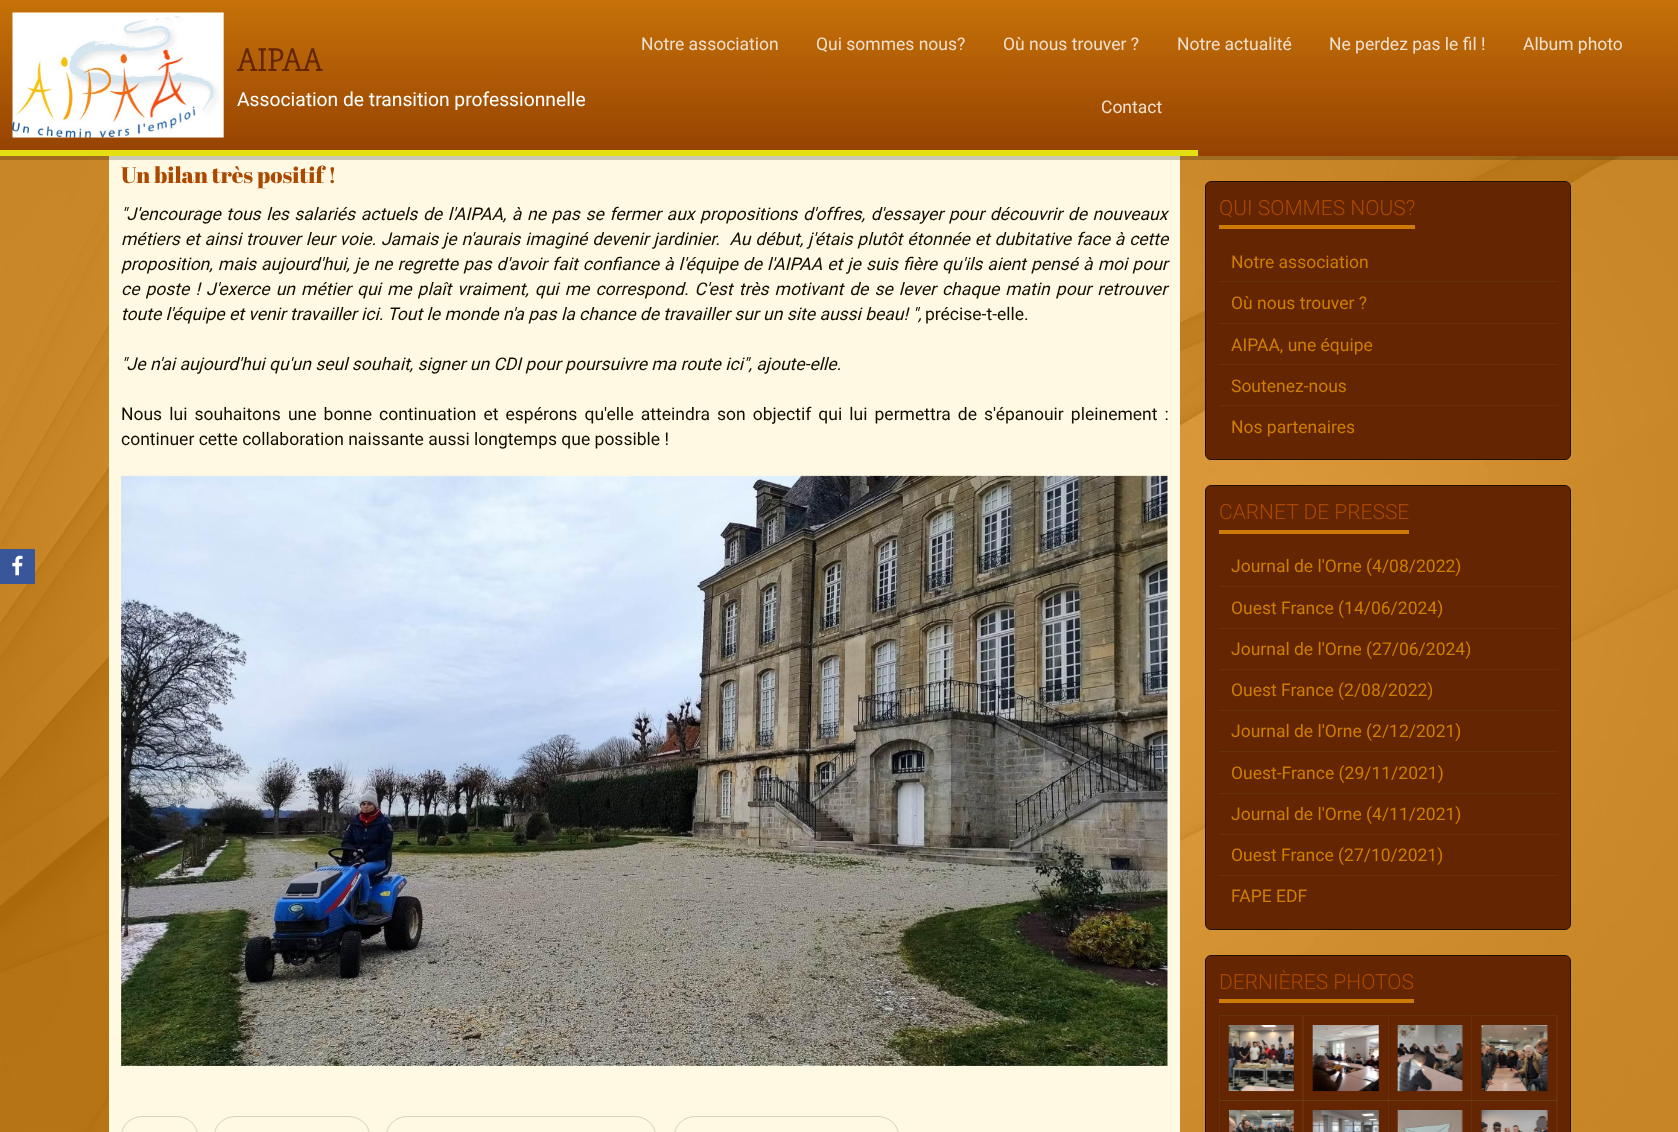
<svg xmlns="http://www.w3.org/2000/svg" width="1678" height="1132" viewBox="0 0 1678 1132">
  <style>
    .t1 { font: 34px 'Slabo 27px'; fill: #642502; }
    .t2 { font: 19.25px Roboto; fill: #fff; }
    .t3 { font: 17.5px Roboto; fill: #f1e0cd; }
    .t4 { font: 22.5px Abril Fatface; fill: #ab4900; }
    .t5 { font: italic 17.5px Roboto; fill: #130d01; }
    .t6 { font: 17.5px Roboto; fill: #130d01; }
    .t7 { font: 300 21px Roboto; fill: #ab4900; }
    .t8 { font: 17.5px Roboto; fill: #ce7e00; }
  </style>
  <defs>
    <linearGradient id="g1" gradientUnits="userSpaceOnUse" x1="839" y1="-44" x2="839" y2="156"><stop offset="0" stop-color="#d4800a"/><stop offset="1" stop-color="#954102"/></linearGradient>
  </defs>
  <rect width="100%" height="100%" fill="#d3800a"/>
  <image x="0" y="156" width="1678" height="976" href="images/1.png"/>
  <rect x="109" y="156" width="1071" height="976" fill="#fff8e3"/>
  <path d="M0 156V160H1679V-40V156Z" fill="#00000033"/>
  <rect x="0" y="0" width="1678" height="156" fill="url(#g1)"/>
  <image x="12" y="12" width="212" height="126" href="images/2.png"/>
  <text x="237" y="71" class="t1">AIPAA</text>
  <text x="237" y="106" class="t2">Association de transition professionnelle</text>
  <text x="641" y="50" class="t3">Notre association</text>
  <text x="816" y="50" class="t3">Qui sommes nous?</text>
  <text x="1003" y="50" class="t3">Où nous trouver ?</text>
  <text x="1177" y="50" class="t3">Notre actualité</text>
  <text x="1329" y="50" class="t3">Ne perdez pas le fil !</text>
  <text x="1523" y="50" class="t3">Album photo</text>
  <text x="1101" y="113" class="t3">Contact</text>
  <rect x="0" y="150" width="1198" height="6" fill="#e4df10"/>
  <rect x="0" y="549" width="35" height="35" fill="#385699"/>
  <image x="12" y="555" width="11" height="21" href="images/3.png"/>
  <text x="121" y="183" class="t4">Un bilan très positif !</text>
  <text x="121" y="220" word-spacing="1.25" class="t5">"J'encourage tous les salariés actuels de l'AIPAA, à ne pas se fermer aux propositions d'offres, d'essayer pour découvrir de nouveaux</text>
  <text x="121" y="245" word-spacing="0.5" class="t5" xml:space="preserve">métiers et ainsi trouver leur voie. Jamais je n'aurais imaginé devenir jardinier.  Au début, j'étais plutôt étonnée et dubitative face à cette</text>
  <text x="121" y="270" word-spacing="0.75" class="t5">proposition, mais aujourd'hui, je ne regrette pas d'avoir fait confiance à l'équipe de l'AIPAA et je suis fière qu'ils aient pensé à moi pour</text>
  <text x="121" y="295" word-spacing="1.75" class="t5">ce poste ! J'exerce un métier qui me plaît vraiment, qui me correspond. C'est très motivant de se lever chaque matin pour retrouver</text>
  <text x="121" y="320" class="t5">toute l'équipe et venir travailler ici. Tout le monde n'a pas la chance de travailler sur un site aussi beau! ",</text>
  <text x="925" y="320" class="t6">précise-t-elle.</text>
  <text x="121" y="370" class="t5">"Je n'ai aujourd'hui qu'un seul souhait, signer un CDI pour poursuivre ma route ici", ajoute-elle.</text>
  <text x="121" y="420" word-spacing="2.75" class="t6">Nous lui souhaitons une bonne continuation et espérons qu'elle atteindra son objectif qui lui permettra de s'épanouir pleinement :</text>
  <text x="121" y="445" class="t6">continuer cette collaboration naissante aussi longtemps que possible !</text>
  <image x="121" y="475" width="1047" height="591" href="images/4.png"/>
  <rect x="121.5" y="1116.5" width="76" height="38" rx="21" fill="none" stroke="#d2d4bb"/>
  <rect x="214.5" y="1116.5" width="155" height="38" rx="21" fill="none" stroke="#d2d4bb"/>
  <rect x="386.5" y="1116.5" width="269" height="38" rx="21" fill="none" stroke="#d2d4bb"/>
  <rect x="674.5" y="1116.5" width="224" height="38" rx="21" fill="none" stroke="#d2d4bb"/>
  <rect x="1205.5" y="181.5" width="365" height="278" rx="5.5" fill="#642502" stroke="#230f03"/>
  <rect x="1219" y="225" width="196" height="4" fill="#ce7a09"/>
  <text x="1219" y="215" class="t7">QUI SOMMES NOUS?</text>
  <rect x="1219" y="281" width="339" height="1" fill="#67320b"/>
  <text x="1231" y="268" class="t8">Notre association</text>
  <rect x="1219" y="323" width="339" height="1" fill="#67320b"/>
  <text x="1231" y="309" class="t8">Où nous trouver ?</text>
  <rect x="1219" y="364" width="339" height="1" fill="#67320b"/>
  <text x="1231" y="351" class="t8">AIPAA, une équipe</text>
  <rect x="1219" y="405" width="339" height="1" fill="#67320b"/>
  <text x="1231" y="392" class="t8">Soutenez-nous</text>
  <text x="1231" y="433" class="t8">Nos partenaires</text>
  <rect x="1205.5" y="485.5" width="365" height="444" rx="5.5" fill="#642502" stroke="#230f03"/>
  <rect x="1219" y="530" width="190" height="4" fill="#ce7a09"/>
  <text x="1219" y="519" class="t7">CARNET DE PRESSE</text>
  <rect x="1219" y="586" width="339" height="1" fill="#67320b"/>
  <text x="1231" y="572" class="t8">Journal de l'Orne (4/08/2022)</text>
  <rect x="1219" y="628" width="339" height="1" fill="#67320b"/>
  <text x="1231" y="614" class="t8">Ouest France (14/06/2024)</text>
  <rect x="1219" y="669" width="339" height="1" fill="#67320b"/>
  <text x="1231" y="655" class="t8">Journal de l'Orne (27/06/2024)</text>
  <rect x="1219" y="710" width="339" height="1" fill="#67320b"/>
  <text x="1231" y="696" class="t8">Ouest France (2/08/2022)</text>
  <rect x="1219" y="751" width="339" height="1" fill="#67320b"/>
  <text x="1231" y="737" class="t8">Journal de l'Orne (2/12/2021)</text>
  <rect x="1219" y="793" width="339" height="1" fill="#67320b"/>
  <text x="1231" y="779" class="t8">Ouest-France (29/11/2021)</text>
  <rect x="1219" y="834" width="339" height="1" fill="#67320b"/>
  <text x="1231" y="820" class="t8">Journal de l'Orne (4/11/2021)</text>
  <rect x="1219" y="875" width="339" height="1" fill="#67320b"/>
  <text x="1231" y="861" class="t8">Ouest France (27/10/2021)</text>
  <text x="1231" y="902" class="t8">FAPE EDF</text>
  <rect x="1205.5" y="955.5" width="365" height="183" rx="5.5" fill="#642502" stroke="#230f03"/>
  <rect x="1219" y="999" width="195" height="4" fill="#ce7a09"/>
  <text x="1219" y="989" class="t7">DERNIÈRES PHOTOS</text>
  <rect x="1219" y="1015" width="1" height="117" fill="#67320b"/>
  <path d="M1220 1015H1304L1302 1016H1220Z" fill="#67320b"/>
  <path d="M1304 1015V1101L1302 1100V1016Z" fill="#73652d33"/>
  <image x="1228" y="1025" width="66" height="67" href="images/5.png"/>
  <path d="M1304 1015H1389L1388 1016H1304Z" fill="#67320b"/>
  <path d="M1389 1015V1101L1388 1100V1016Z" fill="#73652d33"/>
  <image x="1312" y="1025" width="67" height="67" href="images/6.png"/>
  <path d="M1389 1015H1472L1471 1016H1389Z" fill="#67320b"/>
  <path d="M1472 1015V1101L1471 1100V1016Z" fill="#73652d33"/>
  <image x="1397" y="1025" width="66" height="67" href="images/7.png"/>
  <path d="M1472 1015H1558L1556 1016H1472Z" fill="#67320b"/>
  <path d="M1558 1015V1101L1556 1100V1016Z" fill="#73652d33"/>
  <image x="1480" y="1025" width="68" height="67" href="images/8.png"/>
  <path d="M1220 1100H1304L1302 1101H1220Z" fill="#693c11"/>
  <path d="M1304 1100V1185L1302 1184V1101Z" fill="#73652d33"/>
  <image x="1229" y="1110" width="65" height="22" href="images/9.png"/>
  <path d="M1304 1100H1389L1388 1101H1304Z" fill="#693c11"/>
  <path d="M1389 1100V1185L1388 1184V1101Z" fill="#73652d33"/>
  <image x="1312" y="1110" width="67" height="22" href="images/10.png"/>
  <path d="M1389 1100H1472L1471 1101H1389Z" fill="#693c11"/>
  <path d="M1472 1100V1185L1471 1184V1101Z" fill="#73652d33"/>
  <image x="1397" y="1110" width="66" height="22" href="images/11.png"/>
  <path d="M1472 1100H1558L1556 1101H1472Z" fill="#693c11"/>
  <path d="M1558 1100V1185L1556 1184V1101Z" fill="#73652d33"/>
  <image x="1480" y="1110" width="68" height="22" href="images/12.png"/>
</svg>
